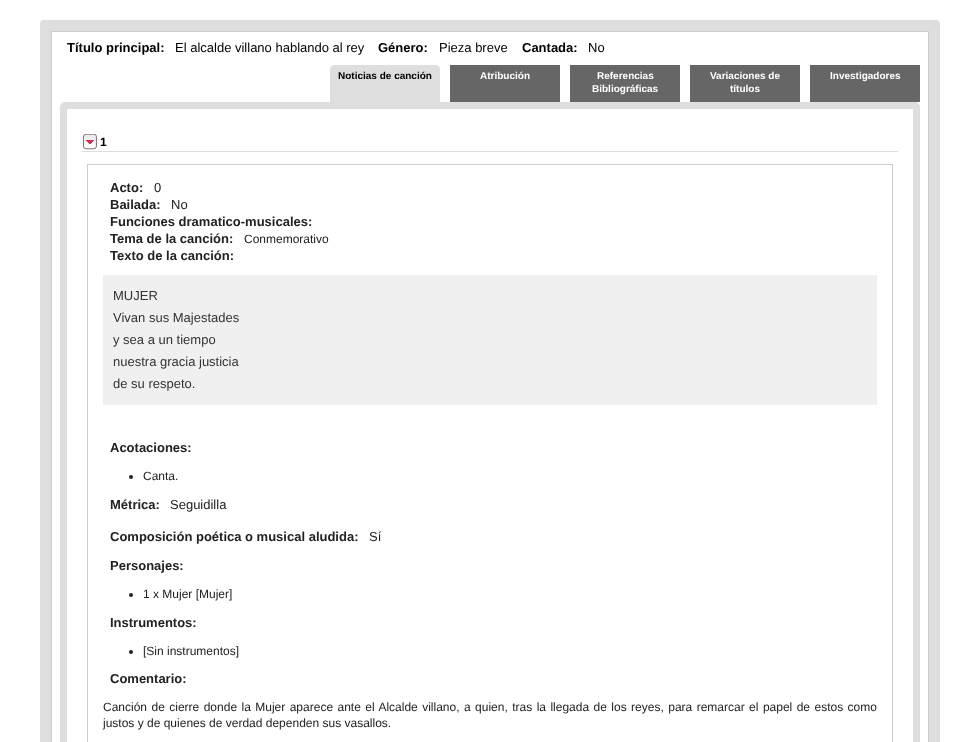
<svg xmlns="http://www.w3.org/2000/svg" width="979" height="742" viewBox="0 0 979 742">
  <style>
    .t1 { font: bold 13px Liberation Sans; fill: #000; }
    .t2 { font: 13px Liberation Sans; fill: #000; }
    .t3 { font: bold 10px Liberation Sans; fill: #000; }
    .t4 { font: bold 10px Liberation Sans; fill: #fff; }
    .t5 { font: bold 12px Liberation Sans; fill: #000; }
    .t6 { font: bold 13px Liberation Sans; fill: #222; }
    .t7 { font: 13px Liberation Sans; fill: #222; }
    .t8 { font: 12px Liberation Sans; fill: #222; }
    .t9 { font: 13px Liberation Sans; fill: #333; }
  </style>
  <rect width="100%" height="100%" fill="#fff"/>
  <rect x="40" y="20" width="900" height="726" rx="4" fill="#dedede"/>
  <rect x="51.5" y="31.5" width="877" height="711" fill="#fff" stroke="#ccc"/>
  <text x="67" y="52" class="t1">Título principal:</text>
  <text x="175" y="52" class="t2">El alcalde villano hablando al rey</text>
  <text x="378" y="52" class="t1">Género:</text>
  <text x="439" y="52" class="t2">Pieza breve</text>
  <text x="522" y="52" class="t1">Cantada:</text>
  <text x="588" y="52" class="t2">No</text>
  <path d="M334 65H436C438 65 440 67 440 69V102H330V69C330 67 332 65 334 65Z" fill="#dedede"/>
  <text x="338" y="79" class="t3">Noticias de canción</text>
  <rect x="450" y="65" width="110" height="37" fill="#666"/>
  <text x="480" y="79" class="t4">Atribución</text>
  <rect x="570" y="65" width="110" height="37" fill="#666"/>
  <text x="597" y="79" class="t4">Referencias</text>
  <text x="592" y="92" class="t4">Bibliográficas</text>
  <rect x="690" y="65" width="110" height="37" fill="#666"/>
  <text x="710" y="79" class="t4">Variaciones de</text>
  <text x="730" y="92" class="t4">títulos</text>
  <rect x="810" y="65" width="110" height="37" fill="#666"/>
  <text x="830" y="79" class="t4">Investigadores</text>
  <rect x="60" y="102" width="860" height="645" rx="5" fill="#dedede"/>
  <rect x="67" y="109" width="846" height="633" fill="#fff"/>
  <rect x="82" y="151" width="816" height="1" fill="#dedede"/>
  <image x="82" y="134" width="15" height="16" href="images/1.png"/>
  <text x="100" y="146" class="t5">1</text>
  <rect x="87.5" y="164.5" width="805" height="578" fill="none" stroke="#ccc"/>
  <text x="110" y="192" class="t6">Acto:</text>
  <text x="154" y="192" class="t7">0</text>
  <text x="110" y="209" class="t6">Bailada:</text>
  <text x="171" y="209" class="t7">No</text>
  <text x="110" y="226" class="t6">Funciones dramatico-musicales:</text>
  <text x="110" y="243" class="t6">Tema de la canción:</text>
  <text x="244" y="243" class="t8">Conmemorativo</text>
  <text x="110" y="260" class="t6">Texto de la canción:</text>
  <rect x="103" y="275" width="774" height="130" fill="#f0f0f0"/>
  <text x="113" y="300" class="t9">MUJER</text>
  <text x="113" y="322" class="t9">Vivan sus Majestades</text>
  <text x="113" y="344" class="t9">y sea a un tiempo</text>
  <text x="113" y="366" class="t9">nuestra gracia justicia</text>
  <text x="113" y="388" class="t9">de su respeto.</text>
  <text x="110" y="452" class="t6">Acotaciones:</text>
  <circle cx="131" cy="477" r="2" fill="#222"/>
  <text x="143" y="480" class="t8">Canta.</text>
  <text x="110" y="509" class="t6">Métrica:</text>
  <text x="170" y="509" class="t7">Seguidilla</text>
  <text x="110" y="541" class="t6">Composición poética o musical aludida:</text>
  <text x="369" y="541" class="t7">Sí</text>
  <text x="110" y="570" class="t6">Personajes:</text>
  <circle cx="131" cy="595" r="2" fill="#222"/>
  <text x="143" y="598" class="t8">1 x Mujer [Mujer]</text>
  <text x="110" y="627" class="t6">Instrumentos:</text>
  <circle cx="131" cy="652" r="2" fill="#222"/>
  <text x="143" y="655" class="t8">[Sin instrumentos]</text>
  <text x="110" y="683" class="t6">Comentario:</text>
  <text x="103" y="711" word-spacing="1.1" class="t8">Canción de cierre donde la Mujer aparece ante el Alcalde villano, a quien, tras la llegada de los reyes, para remarcar el papel de estos como</text>
  <text x="103" y="727" class="t8">justos y de quienes de verdad dependen sus vasallos.</text>
</svg>
